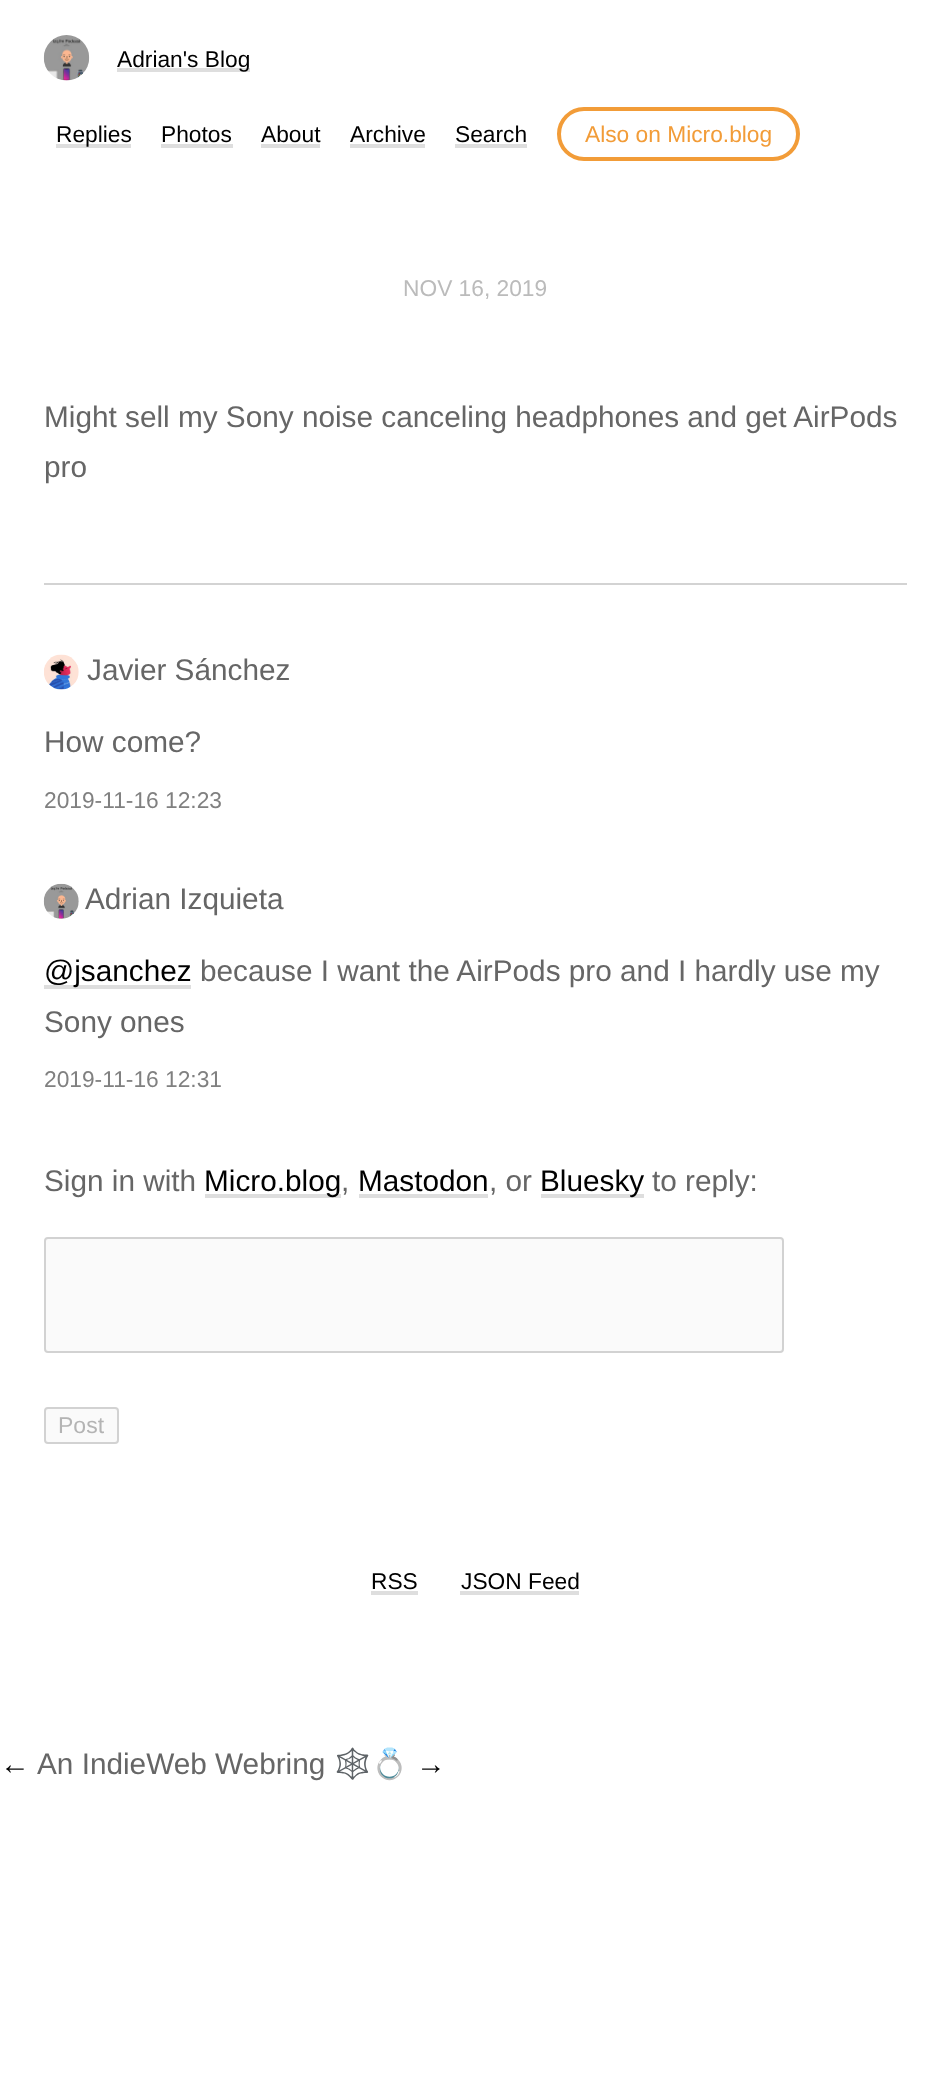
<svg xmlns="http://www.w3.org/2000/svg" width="950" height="2084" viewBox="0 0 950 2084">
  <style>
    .t1 { font: 22.75px Liberation Sans; fill: #000; }
    .t2 { font: 22.75px Liberation Sans; fill: #f29c38; }
    .t3 { font: 22.75px Liberation Sans; fill: #bbb; }
    .t4 { font: 29.75px Liberation Sans; fill: #666; }
    .t5 { font: 22.75px Liberation Sans; fill: #808080; }
    .t6 { font: 29.75px Liberation Sans; fill: #000; }
    .t7 { font: 23px Liberation Sans; fill: #b4b4b4; }
    .t8 { font: 29.75px Noto Color Emoji; fill: #666; }
  </style>
  <rect width="100%" height="100%" fill="#fff"/>
  <image x="43" y="35" width="47" height="46" href="images/1.png"/>
  <rect x="117" y="68" width="133" height="4" fill="#dedede"/>
  <text x="117" y="67" class="t1">Adrian's Blog</text>
  <rect x="56" y="144" width="75" height="4" fill="#dedede"/>
  <text x="56" y="142" class="t1">Replies</text>
  <text x="161" y="142" class="t1">Photos</text>
  <rect x="161" y="144" width="72" height="4" fill="#dedede"/>
  <text x="261" y="142" class="t1">About</text>
  <rect x="261" y="144" width="59" height="4" fill="#dedede"/>
  <text x="350" y="142" class="t1">Archive</text>
  <rect x="350" y="144" width="75" height="4" fill="#dedede"/>
  <text x="455" y="142" class="t1">Search</text>
  <rect x="455" y="144" width="72" height="4" fill="#dedede"/>
  <rect x="559" y="109" width="239" height="50" rx="25" fill="none" stroke="#f29c38" stroke-width="4"/>
  <text x="585" y="142" class="t2">Also on Micro.blog</text>
  <text x="403" y="296" class="t3">NOV 16, 2019</text>
  <text x="44" y="427" class="t4">Might sell my Sony noise canceling headphones and get AirPods</text>
  <text x="44" y="477" class="t4">pro</text>
  <rect x="44" y="583" width="863" height="2" fill="#d3d3d3"/>
  <image x="44" y="654" width="35" height="36" href="images/2.png"/>
  <text x="87" y="680" class="t4">Javier Sánchez</text>
  <text x="44" y="752" class="t4">How come?</text>
  <text x="44" y="808" class="t5">2019-11-16 12:23</text>
  <image x="43" y="883" width="36" height="36" href="images/3.png"/>
  <text x="85" y="909" class="t4">Adrian Izquieta</text>
  <rect x="44" y="985" width="147" height="4" fill="#dedede"/>
  <text x="44" y="981" class="t6">@jsanchez</text>
  <text x="200" y="981" class="t4">because I want the AirPods pro and I hardly use my</text>
  <text x="44" y="1032" class="t4">Sony ones</text>
  <text x="44" y="1087" class="t5">2019-11-16 12:31</text>
  <text x="44" y="1191" class="t4">Sign in with</text>
  <rect x="205" y="1194" width="136" height="4" fill="#dedede"/>
  <text x="204" y="1191" class="t6">Micro.blog</text>
  <text x="341" y="1191" class="t4">,</text>
  <text x="358" y="1191" class="t6">Mastodon</text>
  <rect x="359" y="1194" width="129" height="4" fill="#dedede"/>
  <text x="489" y="1191" class="t4">, or</text>
  <rect x="541" y="1194" width="103" height="4" fill="#dedede"/>
  <text x="540" y="1191" class="t6">Bluesky</text>
  <text x="652" y="1191" class="t4">to reply:</text>
  <rect x="45" y="1238" width="738" height="114" rx="3" fill="#fafafa" stroke="#d2d2d2" stroke-width="2"/>
  <rect x="45" y="1408" width="73" height="35" rx="3" fill="#fafafa" stroke="#d2d2d2" stroke-width="2"/>
  <text x="58" y="1433" class="t7">Post</text>
  <text x="371" y="1589" class="t1">RSS</text>
  <rect x="371" y="1591" width="47" height="4" fill="#dedede"/>
  <text x="461" y="1589" class="t1">JSON Feed</text>
  <rect x="460" y="1591" width="119" height="4" fill="#dedede"/>
  <text x="0" y="1774" class="t6">←</text>
  <text x="37" y="1774" class="t4">An IndieWeb Webring</text>
  <text x="334" y="1774" class="t8">🕸💍</text>
  <text x="416" y="1774" class="t6">→</text>
</svg>
